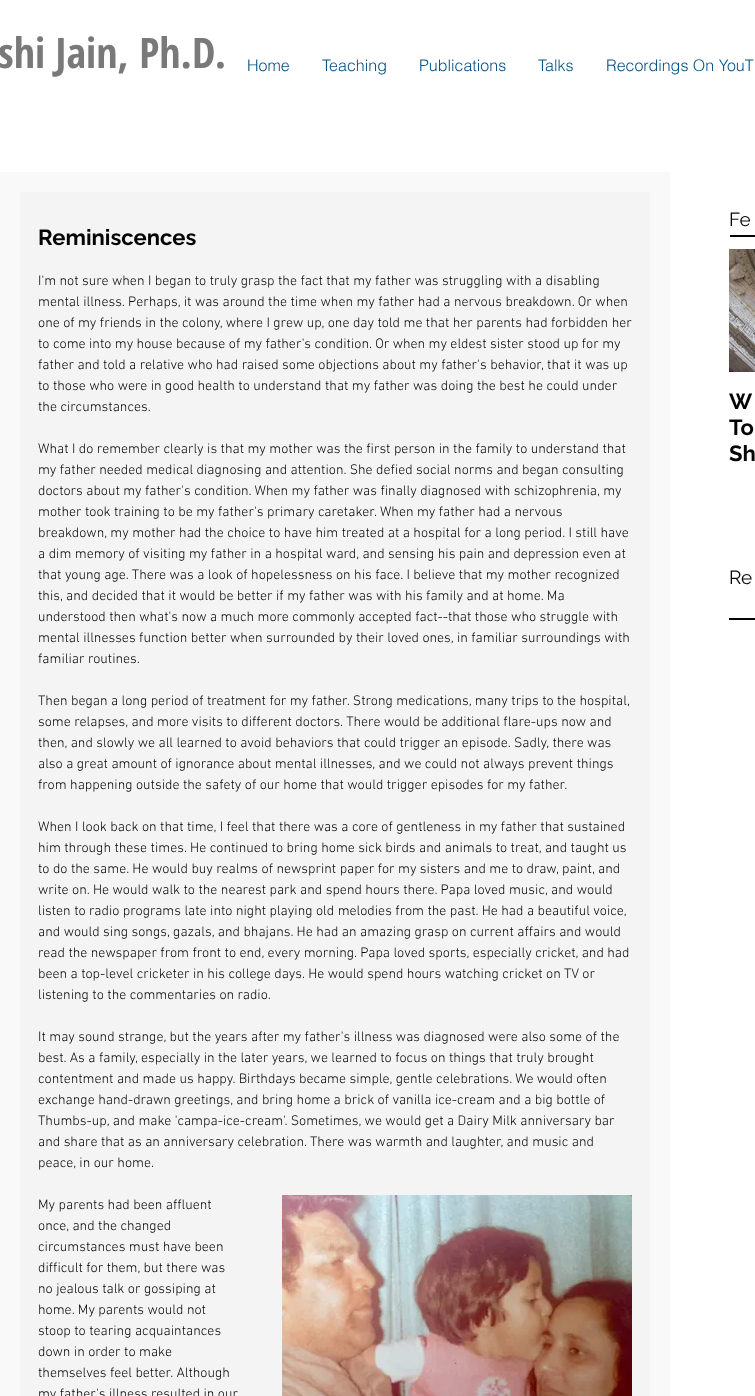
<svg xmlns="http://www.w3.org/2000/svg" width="755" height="1396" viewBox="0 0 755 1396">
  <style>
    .t1 { font: bold 42px Open Sans Condensed; fill: #797979; }
    .t2 { font: 300 16px helvetica; fill: #045184; }
    .t3 { font: 19px Raleway; fill: #050505; }
    .t4 { font: bold 22px Raleway; fill: #050505; }
    .t5 { font: 300 14px 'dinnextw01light'; fill: #050505; }
  </style>
  <rect width="100%" height="100%" fill="#fff"/>
  <text x="-2" y="68" class="t1">shi Jain, Ph.D.</text>
  <text x="247" y="71" class="t2">Home</text>
  <text x="322" y="71" class="t2">Teaching</text>
  <text x="419" y="71" class="t2">Publications</text>
  <text x="538" y="71" class="t2">Talks</text>
  <text x="606" y="71" class="t2">Recordings On YouT</text>
  <text x="729" y="226" class="t3">Fe</text>
  <rect x="0" y="172" width="670" height="1224" fill="#f9f9f9"/>
  <rect x="20" y="192" width="630" height="1204" fill="#f4f4f4"/>
  <text x="38" y="245" class="t4">Reminiscences</text>
  <text x="38" y="285" class="t5">I'm not sure when I began to truly grasp the fact that my father was struggling with a disabling</text>
  <text x="38" y="306" class="t5">mental illness. Perhaps, it was around the time when my father had a nervous breakdown. Or when</text>
  <text x="38" y="327" class="t5">one of my friends in the colony, where I grew up, one day told me that her parents had forbidden her</text>
  <text x="38" y="348" class="t5">to come into my house because of my father's condition. Or when my eldest sister stood up for my</text>
  <text x="38" y="369" class="t5">father and told a relative who had raised some objections about my father's behavior, that it was up</text>
  <text x="38" y="390" class="t5">to those who were in good health to understand that my father was doing the best he could under</text>
  <text x="38" y="411" class="t5">the circumstances.</text>
  <text x="38" y="453" class="t5">What I do remember clearly is that my mother was the first person in the family to understand that</text>
  <text x="38" y="474" class="t5">my father needed medical diagnosing and attention. She defied social norms and began consulting</text>
  <text x="38" y="495" class="t5">doctors about my father's condition. When my father was finally diagnosed with schizophrenia, my</text>
  <text x="38" y="516" class="t5">mother took training to be my father's primary caretaker. When my father had a nervous</text>
  <text x="38" y="537" class="t5">breakdown, my mother had the choice to have him treated at a hospital for a long period. I still have</text>
  <text x="38" y="558" class="t5">a dim memory of visiting my father in a hospital ward, and sensing his pain and depression even at</text>
  <text x="38" y="579" class="t5">that young age. There was a look of hopelessness on his face. I believe that my mother recognized</text>
  <text x="38" y="600" class="t5">this, and decided that it would be better if my father was with his family and at home. Ma</text>
  <text x="38" y="621" class="t5">understood then what's now a much more commonly accepted fact--that those who struggle with</text>
  <text x="38" y="642" class="t5">mental illnesses function better when surrounded by their loved ones, in familiar surroundings with</text>
  <text x="38" y="663" class="t5">familiar routines.</text>
  <text x="38" y="705" class="t5">Then began a long period of treatment for my father. Strong medications, many trips to the hospital,</text>
  <text x="38" y="726" class="t5">some relapses, and more visits to different doctors. There would be additional flare-ups now and</text>
  <text x="38" y="747" class="t5">then, and slowly we all learned to avoid behaviors that could trigger an episode. Sadly, there was</text>
  <text x="38" y="768" class="t5">also a great amount of ignorance about mental illnesses, and we could not always prevent things</text>
  <text x="38" y="789" class="t5">from happening outside the safety of our home that would trigger episodes for my father.</text>
  <text x="38" y="831" class="t5">When I look back on that time, I feel that there was a core of gentleness in my father that sustained</text>
  <text x="38" y="852" class="t5">him through these times. He continued to bring home sick birds and animals to treat, and taught us</text>
  <text x="38" y="873" class="t5">to do the same. He would buy realms of newsprint paper for my sisters and me to draw, paint, and</text>
  <text x="38" y="894" class="t5">write on. He would walk to the nearest park and spend hours there. Papa loved music, and would</text>
  <text x="38" y="915" class="t5">listen to radio programs late into night playing old melodies from the past. He had a beautiful voice,</text>
  <text x="38" y="936" class="t5">and would sing songs, gazals, and bhajans. He had an amazing grasp on current affairs and would</text>
  <text x="38" y="957" class="t5">read the newspaper from front to end, every morning. Papa loved sports, especially cricket, and had</text>
  <text x="38" y="978" class="t5">been a top-level cricketer in his college days. He would spend hours watching cricket on TV or</text>
  <text x="38" y="999" class="t5">listening to the commentaries on radio.</text>
  <text x="38" y="1041" class="t5">It may sound strange, but the years after my father's illness was diagnosed were also some of the</text>
  <text x="38" y="1062" class="t5">best. As a family, especially in the later years, we learned to focus on things that truly brought</text>
  <text x="38" y="1083" class="t5">contentment and made us happy. Birthdays became simple, gentle celebrations. We would often</text>
  <text x="38" y="1104" class="t5">exchange hand-drawn greetings, and bring home a brick of vanilla ice-cream and a big bottle of</text>
  <text x="38" y="1125" class="t5">Thumbs-up, and make 'campa-ice-cream'. Sometimes, we would get a Dairy Milk anniversary bar</text>
  <text x="38" y="1146" class="t5">and share that as an anniversary celebration. There was warmth and laughter, and music and</text>
  <text x="38" y="1167" class="t5">peace, in our home.</text>
  <text x="38" y="1209" class="t5">My parents had been affluent</text>
  <text x="38" y="1230" class="t5">once, and the changed</text>
  <text x="38" y="1251" class="t5">circumstances must have been</text>
  <text x="38" y="1272" class="t5">difficult for them, but there was</text>
  <text x="38" y="1293" class="t5">no jealous talk or gossiping at</text>
  <text x="38" y="1314" class="t5">home. My parents would not</text>
  <text x="38" y="1335" class="t5">stoop to tearing acquaintances</text>
  <text x="38" y="1356" class="t5">down in order to make</text>
  <text x="38" y="1377" class="t5">themselves feel better. Although</text>
  <text x="38" y="1398" class="t5">my father's illness resulted in our</text>
  <image x="282" y="1195" width="350" height="201" href="images/1.png"/>
  <rect x="730" y="235" width="25" height="2" fill="#050505"/>
  <image x="729" y="249" width="26" height="123" href="images/2.png"/>
  <text x="729" y="409" class="t4">W</text>
  <text x="729" y="435" class="t4">To</text>
  <text x="729" y="461" word-spacing="-1" class="t4">Sh</text>
  <text x="729" y="584" class="t3">Re</text>
  <rect x="729" y="618" width="26" height="2" fill="#050505"/>
</svg>
